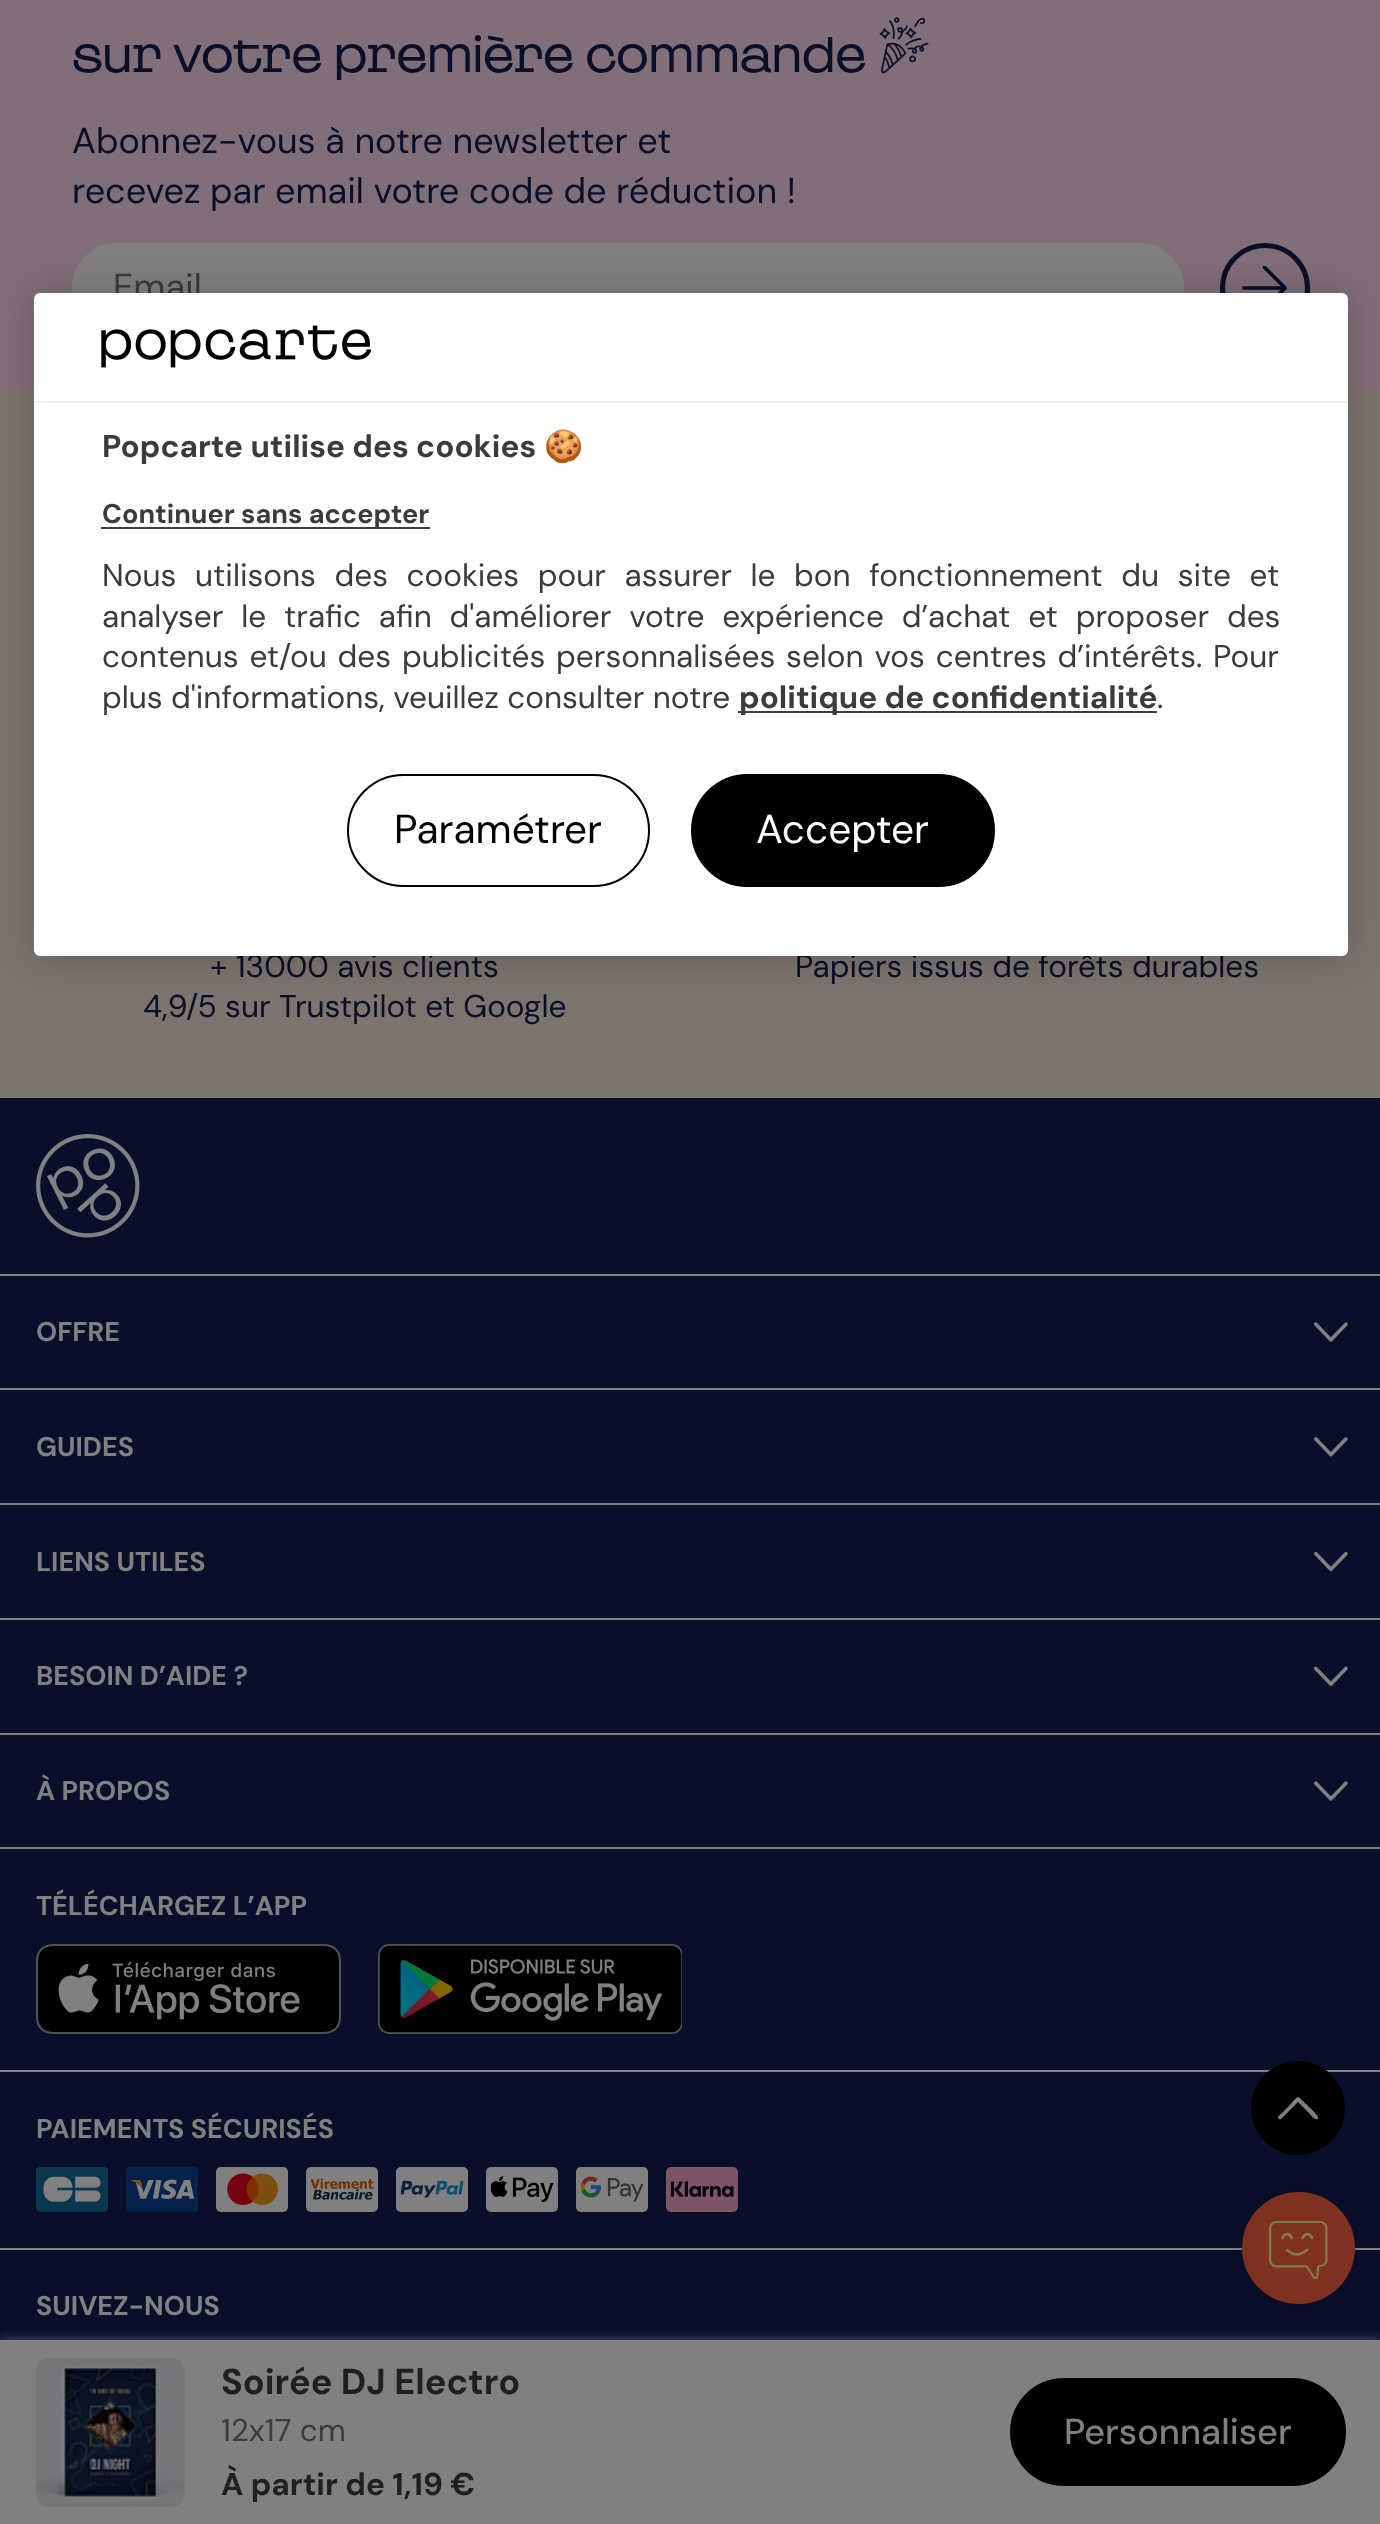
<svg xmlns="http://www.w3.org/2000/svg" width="1380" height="2524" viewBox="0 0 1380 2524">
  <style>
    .t1 { font: 45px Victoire; fill: #090f2a; }
    .t2 { font: 68px 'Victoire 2'; fill: #090f2a; }
    .t3 { font: 36px DM Sans; fill: #090f2a; }
    .t4 { font: 36px DM Sans; fill: #3b3b3b; }
    .t5 { font: 31.5px DM Sans; fill: #090f2a; }
    .t6 { font: bold 36px DM Sans; fill: #1f1f20; }
    .t7 { font: 31.5px DM Sans; fill: #3b3b3b; }
    .t8 { font: bold 31.5px DM Sans; fill: #1f1f20; }
    .t9 { font: 500 36px DM Sans; fill: #808080; }
    .t10 { font: bold 27px DM Sans; fill: #808080; }
    .t11 { font: bold 31.5px DM Sans; fill: #3b3b3b; }
    .t12 { font: bold 31.5px Noto Color Emoji; fill: #3b3b3b; }
    .t13 { font: bold 27px DM Sans; fill: #3b3b3b; }
    .t14 { font: 40.5px DM Sans; fill: #000; }
    .t15 { font: 40.5px DM Sans; fill: #fff; }
  </style>
  <rect width="100%" height="100%" fill="#090f2a"/>
  <rect x="0" y="0" width="1380" height="387" fill="#806e79"/>
  <text x="72" y="72" class="t1">sur votre première commande</text>
  <text x="878" y="72" class="t2">%</text>
  <text x="72" y="153" class="t3">Abonnez-vous à notre newsletter et</text>
  <text x="72" y="203" class="t3">recevez par email votre code de réduction !</text>
  <rect x="74.5" y="245.5" width="1107" height="85" rx="42.5" fill="#808080" stroke="#808080" stroke-width="5"/>
  <text x="113" y="299" class="t4">Email</text>
  <circle cx="1265" cy="288" r="42.5" fill="none" stroke="#090f2a" stroke-width="5"/>
  <image x="1242" y="266" width="45" height="27" href="images/1.png"/>
  <rect x="0" y="387" width="1380" height="711" fill="#7c746e"/>
  <text x="210" y="977" class="t5">+ 13000 avis clients</text>
  <text x="143" y="1017" class="t5">4,9/5 sur Trustpilot et Google</text>
  <text x="795" y="977" class="t5">Papiers issus de forêts durables</text>
  <rect x="0" y="2336" width="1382" height="184" fill="#64656b66" filter="blur(4.5px)"/>
  <rect x="0" y="2340" width="1380" height="184" fill="#808080"/>
  <rect x="36" y="2358" width="149" height="149" rx="14" fill="#757679"/>
  <image x="36" y="2358" width="148" height="147" href="images/2.png"/>
  <text x="221" y="2394" class="t6">Soirée DJ Electro</text>
  <text x="221" y="2441" class="t7">12x17 cm</text>
  <text x="221" y="2495" class="t8">À partir de 1,19 €</text>
  <rect x="1011" y="2379" width="334" height="106" rx="53" fill="#000" stroke="#000" stroke-width="2"/>
  <text x="1064" y="2444" class="t9">Personnaliser</text>
  <image x="36" y="1134" width="104" height="104" href="images/3.png"/>
  <rect x="0" y="1274" width="1380" height="2" fill="#808080"/>
  <text x="36" y="1341" class="t10">OFFRE</text>
  <image x="1314" y="1322" width="34" height="20" href="images/4.png"/>
  <rect x="0" y="1388" width="1380" height="2" fill="#808080"/>
  <text x="36" y="1456" class="t10">GUIDES</text>
  <image x="1314" y="1437" width="34" height="20" href="images/5.png"/>
  <rect x="0" y="1503" width="1380" height="2" fill="#808080"/>
  <text x="36" y="1571" class="t10">LIENS UTILES</text>
  <image x="1314" y="1551" width="34" height="21" href="images/6.png"/>
  <rect x="0" y="1618" width="1380" height="2" fill="#808080"/>
  <text x="36" y="1685" class="t10">BESOIN D’AIDE ?</text>
  <image x="1314" y="1666" width="34" height="20" href="images/7.png"/>
  <rect x="0" y="1733" width="1380" height="2" fill="#808080"/>
  <text x="36" y="1800" class="t10">À PROPOS</text>
  <image x="1314" y="1781" width="34" height="20" href="images/4.png"/>
  <rect x="0" y="1847" width="1380" height="2" fill="#808080"/>
  <rect x="0" y="2070" width="1380" height="2" fill="#808080"/>
  <text x="36" y="1915" class="t10">TÉLÉCHARGEZ L’APP</text>
  <image x="36" y="1944" width="306" height="90" href="images/8.png"/>
  <image x="378" y="1944" width="304" height="90" href="images/9.png"/>
  <rect x="0" y="2248" width="1380" height="2" fill="#808080"/>
  <text x="36" y="2138" class="t10">PAIEMENTS SÉCURISÉS</text>
  <image x="36" y="2167" width="72" height="45" href="images/10.png"/>
  <image x="126" y="2167" width="72" height="45" href="images/11.png"/>
  <rect x="216" y="2167" width="72" height="45" rx="5" fill="#808080"/>
  <image x="227" y="2173" width="52" height="32" href="images/12.png"/>
  <rect x="306" y="2167" width="72" height="45" rx="5" fill="#808080"/>
  <image x="311" y="2178" width="63" height="22" href="images/13.png"/>
  <rect x="396" y="2167" width="72" height="45" rx="5" fill="#808080"/>
  <image x="401" y="2180" width="63" height="18" href="images/14.png"/>
  <rect x="486" y="2167" width="72" height="45" rx="5" fill="#808080"/>
  <image x="491" y="2176" width="63" height="26" href="images/15.png"/>
  <rect x="576" y="2167" width="72" height="45" rx="5" fill="#808080"/>
  <image x="581" y="2176" width="63" height="26" href="images/16.png"/>
  <rect x="666" y="2167" width="72" height="45" rx="5" fill="#805467"/>
  <image x="671" y="2181" width="63" height="16" href="images/17.png"/>
  <text x="36" y="2315" class="t10">SUIVEZ-NOUS</text>
  <rect x="34" y="293" width="1314" height="663" rx="6" fill="#00000033" filter="blur(20px)"/>
  <rect x="34" y="293" width="1314" height="663" rx="6" fill="#fff"/>
  <rect x="34" y="401" width="1314" height="2" fill="#eff0f0"/>
  <image x="101" y="325" width="271" height="43" href="images/18.png"/>
  <text x="102" y="457" class="t11">Popcarte utilise des cookies</text>
  <text x="544" y="457" class="t12">🍪</text>
  <rect x="101" y="527" width="329" height="2" fill="#3d3e3f"/>
  <text x="102" y="523" class="t13">Continuer sans accepter</text>
  <text x="102" y="586" word-spacing="10.25" class="t7">Nous utilisons des cookies pour assurer le bon fonctionnement du site et</text>
  <text x="102" y="627" word-spacing="9.5" class="t7">analyser le trafic afin d'améliorer votre expérience d’achat et proposer des</text>
  <text x="102" y="667" word-spacing="2.5" class="t7">contenus et/ou des publicités personnalisées selon vos centres d’intérêts. Pour</text>
  <text x="102" y="708" class="t7">plus d'informations, veuillez consulter notre</text>
  <rect x="738" y="711" width="419" height="2" fill="#3d3e3f"/>
  <text x="739" y="708" class="t11">politique de confidentialité</text>
  <text x="1157" y="708" class="t7">.</text>
  <rect x="348" y="775" width="301" height="111" rx="55.5" fill="none" stroke="#000" stroke-width="2"/>
  <text x="394" y="843" class="t14">Paramétrer</text>
  <rect x="692" y="775" width="302" height="111" rx="55.5" fill="#000" stroke="#000" stroke-width="2"/>
  <text x="756" y="843" class="t15">Accepter</text>
  <circle cx="1298" cy="2108" r="47" fill="#000"/>
  <path d="M1318 2117V2119C1315 2121 1310 2114 1309 2113L1298 2102L1284 2116C1283 2117 1281 2120 1279 2119C1276 2117 1281 2114 1282 2113L1288 2107C1299 2095 1296 2094 1306 2104C1308 2106 1318 2115 1318 2117Z" fill="#808080"/>
  <rect x="1242" y="2192" width="113" height="112" rx="56" fill="#00000026" filter="blur(4.5px)"/>
  <rect x="1242" y="2192" width="113" height="112" rx="56" fill="#80301f"/>
  <image x="1269" y="2221" width="59" height="58" href="images/19.png"/>
</svg>
